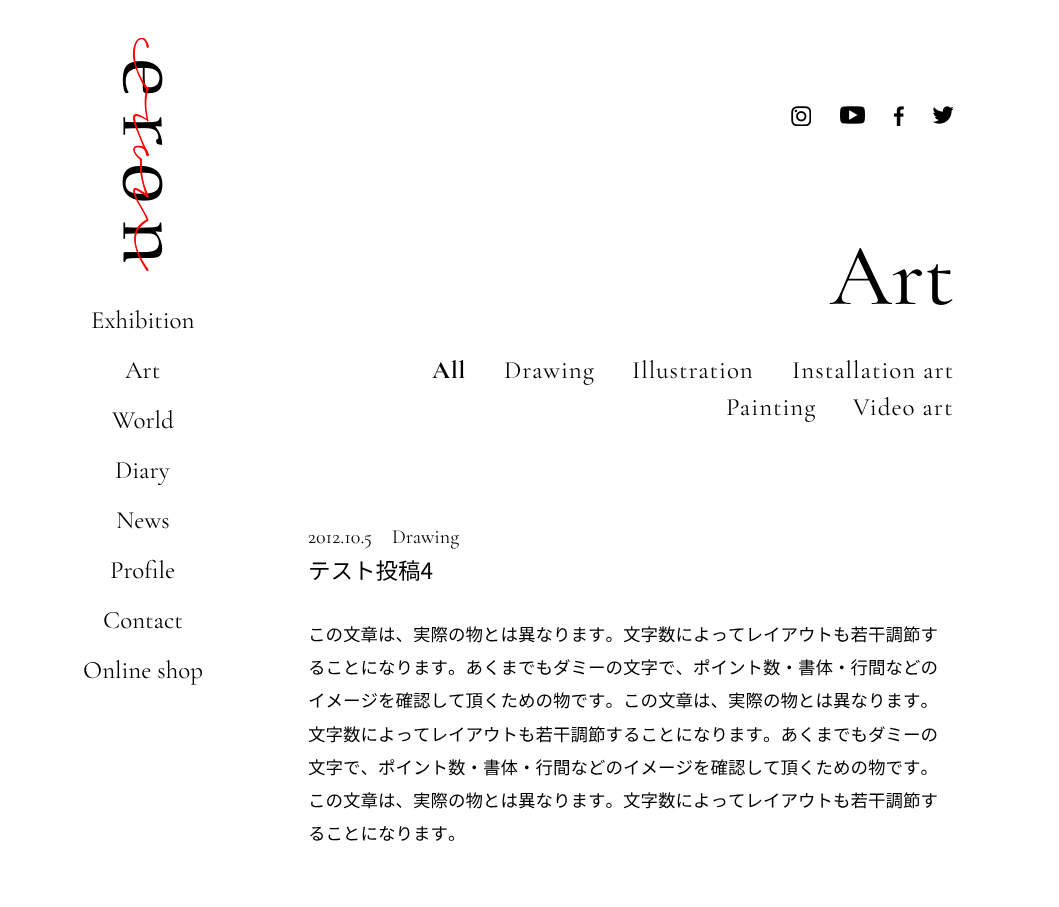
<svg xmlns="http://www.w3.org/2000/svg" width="1059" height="907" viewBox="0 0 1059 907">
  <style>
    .t1 { font: 25px Cormorant Garamond; fill: #000; }
    .t2 { font: 500 88px Cormorant Garamond; fill: #000; }
    .t3 { font: bold 25px Cormorant Garamond; letter-spacing: 1px; fill: #000; }
    .t4 { font: 25px Cormorant Garamond; letter-spacing: 1px; fill: #000; }
    .t5 { font: 20px Cormorant Garamond; fill: #000; }
    .t6 { font: 22.5px Noto Sans CJK JP; fill: #000; }
    .t7 { font: 17.5px Noto Sans CJK JP; fill: #000; }
  </style>
  <rect width="100%" height="100%" fill="#fff"/>
  <image x="122" y="38" width="41" height="233" href="images/1.png"/>
  <text x="91" y="328" class="t1">Exhibition</text>
  <text x="125" y="378" class="t1">Art</text>
  <text x="112" y="428" class="t1">World</text>
  <text x="115" y="478" class="t1">Diary</text>
  <text x="116" y="528" class="t1">News</text>
  <text x="110" y="578" class="t1">Profile</text>
  <text x="103" y="628" class="t1">Contact</text>
  <text x="83" y="678" class="t1">Online shop</text>
  <image x="791" y="106" width="20" height="20" href="images/2.png"/>
  <image x="840" y="106" width="25" height="18" href="images/3.png"/>
  <image x="894" y="106" width="10" height="20" href="images/4.png"/>
  <image x="933" y="106" width="21" height="18" href="images/5.png"/>
  <text x="830" y="304" class="t2">Art</text>
  <text x="432" y="378" class="t3">All</text>
  <text x="504" y="378" class="t4">Drawing</text>
  <text x="632" y="378" class="t4">Illustration</text>
  <text x="792" y="378" class="t4">Installation art</text>
  <text x="726" y="415" class="t4">Painting</text>
  <text x="853" y="415" class="t4">Video art</text>
  <text x="308" y="543" class="t5">2012.10.5</text>
  <text x="392" y="543" class="t5">Drawing</text>
  <text x="308" y="579" class="t6">テスト投稿4</text>
  <text x="308" y="641" class="t7">この文章は、実際の物とは異なります。文字数によってレイアウトも若干調節す</text>
  <text x="308" y="674" class="t7">ることになります。あくまでもダミーの文字で、ポイント数・書体・行間などの</text>
  <text x="308" y="707" class="t7">イメージを確認して頂くための物です。この文章は、実際の物とは異なります。</text>
  <text x="308" y="741" class="t7">文字数によってレイアウトも若干調節することになります。あくまでもダミーの</text>
  <text x="308" y="774" class="t7">文字で、ポイント数・書体・行間などのイメージを確認して頂くための物です。</text>
  <text x="308" y="807" class="t7">この文章は、実際の物とは異なります。文字数によってレイアウトも若干調節す</text>
  <text x="308" y="840" class="t7">ることになります。</text>
</svg>
